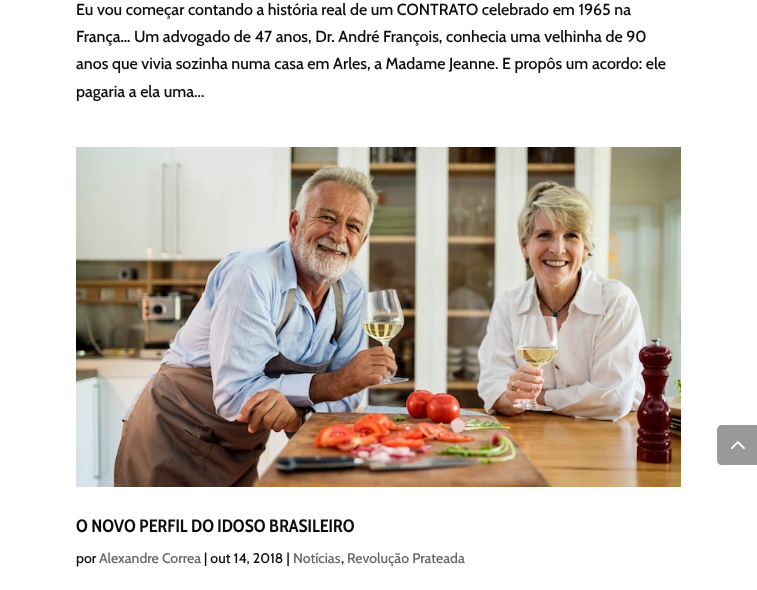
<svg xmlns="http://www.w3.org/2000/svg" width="757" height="590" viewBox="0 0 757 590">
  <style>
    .t1 { font: 500 16px Cabin; fill: #0d0d0d; }
    .t2 { font: bold 18px Cabin Condensed; fill: #0d0d0d; }
    .t3 { font: 500 14px Cabin; fill: #0d0d0d; }
    .t4 { font: 500 14px Cabin; fill: #666; }
  </style>
  <rect width="100%" height="100%" fill="#fff"/>
  <text x="76" y="15" class="t1">Eu vou começar contando a história real de um CONTRATO celebrado em 1965 na</text>
  <text x="76" y="42" class="t1">França… Um advogado de 47 anos, Dr. André François, conhecia uma velhinha de 90</text>
  <text x="76" y="69" class="t1">anos que vivia sozinha numa casa em Arles, a Madame Jeanne. E propôs um acordo: ele</text>
  <text x="76" y="97" class="t1">pagaria a ela uma...</text>
  <image x="76" y="147" width="605" height="340" href="images/1.png"/>
  <text x="76" y="532" class="t2">O NOVO PERFIL DO IDOSO BRASILEIRO</text>
  <text x="76" y="563" class="t3">por</text>
  <text x="99" y="563" class="t4">Alexandre Correa</text>
  <text x="204" y="563" class="t3">| out 14, 2018 |</text>
  <text x="293" y="563" class="t4">Notícias</text>
  <text x="341" y="563" class="t3">,</text>
  <text x="347" y="563" class="t4">Revolução Prateada</text>
  <path d="M722 425H757V465H722C719 465 717 463 717 460V430C717 427 719 425 722 425Z" fill="#999"/>
  <image x="731" y="441" width="14" height="8" href="images/2.png"/>
</svg>
